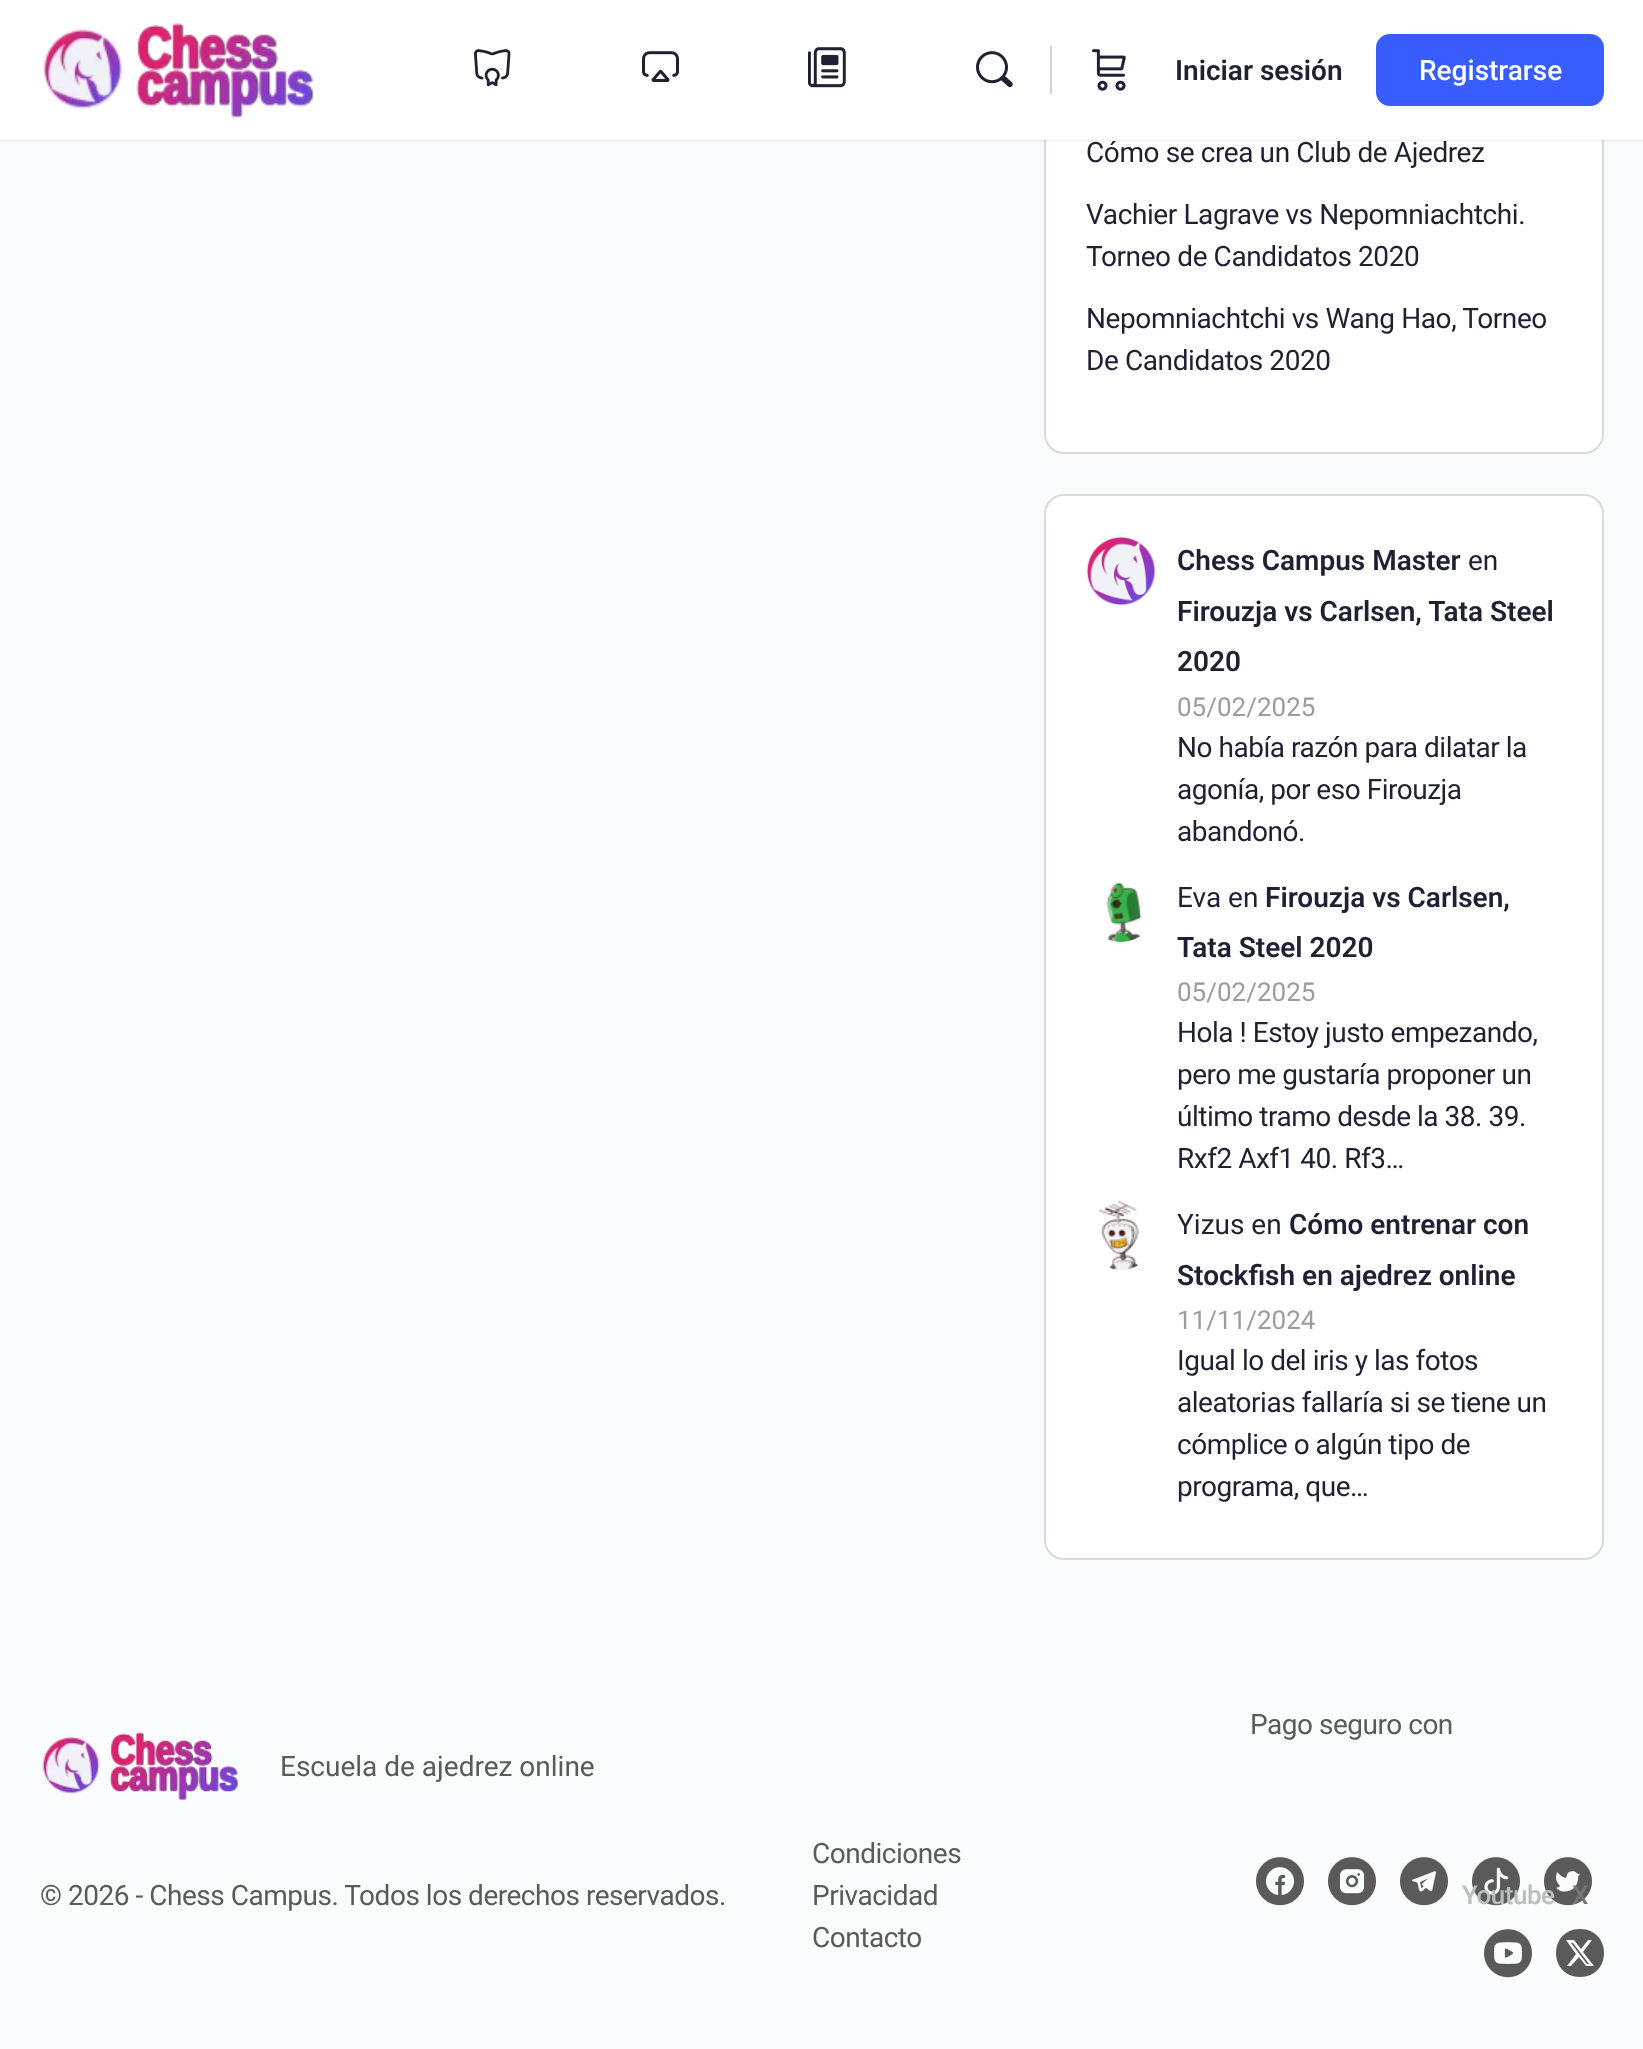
<svg xmlns="http://www.w3.org/2000/svg" width="1643" height="2049" viewBox="0 0 1643 2049">
  <style>
    .t1 { font: 600 28px Roboto; fill: #1e2132; }
    .t2 { font: 500 28px Roboto; fill: #fff; }
    .t3 { font: 28px Roboto; letter-spacing: -0.4px; fill: #1e2132; }
    .t4 { font: 28px Roboto; fill: #1e2132; }
    .t5 { font: 26px Roboto; fill: #9b9c9f; }
    .t6 { font: 28px Roboto; letter-spacing: -0.48px; fill: #1e2132; }
    .t7 { font: 28px Roboto; fill: #5a5a5a; }
    .t8 { font: 28px Roboto; letter-spacing: -0.48px; fill: #5a5a5a; }
    .t9 { font: 500 26px Roboto; letter-spacing: -0.48px; fill: #bbbcbd; }
    .t10 { font: 500 26px Roboto; letter-spacing: -0.48px; fill: #767676; }
  </style>
  <rect width="100%" height="100%" fill="#fafbfd"/>
  <rect x="1045" y="-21" width="558" height="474" rx="19" fill="#fff" stroke="#d6d9dd" stroke-width="2"/>
  <rect x="0" y="0" width="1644" height="140" fill="#41476c26" filter="blur(1px)"/>
  <rect x="0" y="140" width="1643" height="2" fill="#8b8d9d0d"/>
  <rect x="0" y="0" width="1643" height="140" fill="#fff"/>
  <image x="43" y="23" width="271" height="96" href="images/1.png"/>
  <image x="474" y="49" width="37" height="38" href="images/2.png"/>
  <image x="642" y="51" width="37" height="31" href="images/3.png"/>
  <image x="808" y="47" width="38" height="41" href="images/4.png"/>
  <image x="976" y="51" width="37" height="37" href="images/5.png"/>
  <rect x="1050" y="46" width="2" height="48" fill="#d2d3d6"/>
  <image x="1092" y="49" width="34" height="42" href="images/6.png"/>
  <text x="1175" y="80" class="t1">Iniciar sesión</text>
  <rect x="1377" y="35" width="226" height="70" rx="13" fill="#385dff" stroke="#385dff" stroke-width="2"/>
  <text x="1419" y="80" class="t2">Registrarse</text>
  <text x="1086" y="162" class="t3">Cómo se crea un Club de Ajedrez</text>
  <text x="1086" y="224" class="t3">Vachier Lagrave vs Nepomniachtchi.</text>
  <text x="1086" y="266" class="t3">Torneo de Candidatos 2020</text>
  <text x="1086" y="328" class="t3">Nepomniachtchi vs Wang Hao, Torneo</text>
  <text x="1086" y="370" class="t3">De Candidatos 2020</text>
  <rect x="1045" y="495" width="558" height="1064" rx="19" fill="#fff" stroke="#d6d9dd" stroke-width="2"/>
  <image x="1086" y="536" width="70" height="70" href="images/7.png"/>
  <text x="1177" y="570" class="t1">Chess Campus Master</text>
  <text x="1468" y="570" class="t4">en</text>
  <text x="1177" y="621" class="t1">Firouzja vs Carlsen, Tata Steel</text>
  <text x="1177" y="671" class="t1">2020</text>
  <text x="1177" y="716" class="t5">05/02/2025</text>
  <text x="1177" y="757" class="t6">No había razón para dilatar la</text>
  <text x="1177" y="799" class="t6">agonía, por eso Firouzja</text>
  <text x="1177" y="841" class="t6">abandonó.</text>
  <image x="1106" y="882" width="36" height="60" href="images/8.png"/>
  <text x="1177" y="907" class="t4">Eva en</text>
  <text x="1265" y="907" class="t1">Firouzja vs Carlsen,</text>
  <text x="1177" y="957" class="t1">Tata Steel 2020</text>
  <text x="1177" y="1001" class="t5">05/02/2025</text>
  <text x="1177" y="1042" class="t6">Hola ! Estoy justo empezando,</text>
  <text x="1177" y="1084" class="t6">pero me gustaría proponer un</text>
  <text x="1177" y="1126" class="t6">último tramo desde la 38. 39.</text>
  <text x="1177" y="1168" class="t6">Rxf2 Axf1 40. Rf3…</text>
  <image x="1098" y="1200" width="41" height="70" href="images/9.png"/>
  <text x="1177" y="1234" class="t4">Yizus en</text>
  <text x="1289" y="1234" class="t1">Cómo entrenar con</text>
  <text x="1177" y="1285" class="t1">Stockfish en ajedrez online</text>
  <text x="1177" y="1329" class="t5">11/11/2024</text>
  <text x="1177" y="1370" class="t6">Igual lo del iris y las fotos</text>
  <text x="1177" y="1412" class="t6">aleatorias fallaría si se tiene un</text>
  <text x="1177" y="1454" class="t6">cómplice o algún tipo de</text>
  <text x="1177" y="1496" class="t6">programa, que…</text>
  <image x="42" y="1732" width="196" height="68" href="images/10.png"/>
  <text x="280" y="1776" class="t7">Escuela de ajedrez online</text>
  <text x="40" y="1905" class="t8">© 2026 - Chess Campus. Todos los derechos reservados.</text>
  <text x="812" y="1863" class="t8">Condiciones</text>
  <text x="812" y="1905" class="t8">Privacidad</text>
  <text x="812" y="1947" class="t8">Contacto</text>
  <text x="1250" y="1734" class="t8">Pago seguro con</text>
  <image x="1256" y="1857" width="48" height="49" href="images/11.png"/>
  <image x="1328" y="1857" width="48" height="49" href="images/12.png"/>
  <image x="1400" y="1857" width="48" height="49" href="images/13.png"/>
  <image x="1472" y="1857" width="48" height="49" href="images/14.png"/>
  <image x="1544" y="1857" width="48" height="49" href="images/15.png"/>
  <text x="1462" y="1904" class="t9">Youtube</text>
  <image x="1484" y="1929" width="48" height="49" href="images/16.png"/>
  <text x="1572" y="1904" class="t10">X</text>
  <path d="M1573 1943H1571L1587 1964H1589ZM1580 1977C1612 1977 1612 1929 1580 1929C1548 1929 1548 1977 1580 1977ZM1566 1940H1574L1581 1949L1588 1940H1592L1583 1952L1594 1966H1586L1579 1957L1571 1966H1567L1576 1954Z" fill="#5a5a5a"/>
</svg>
